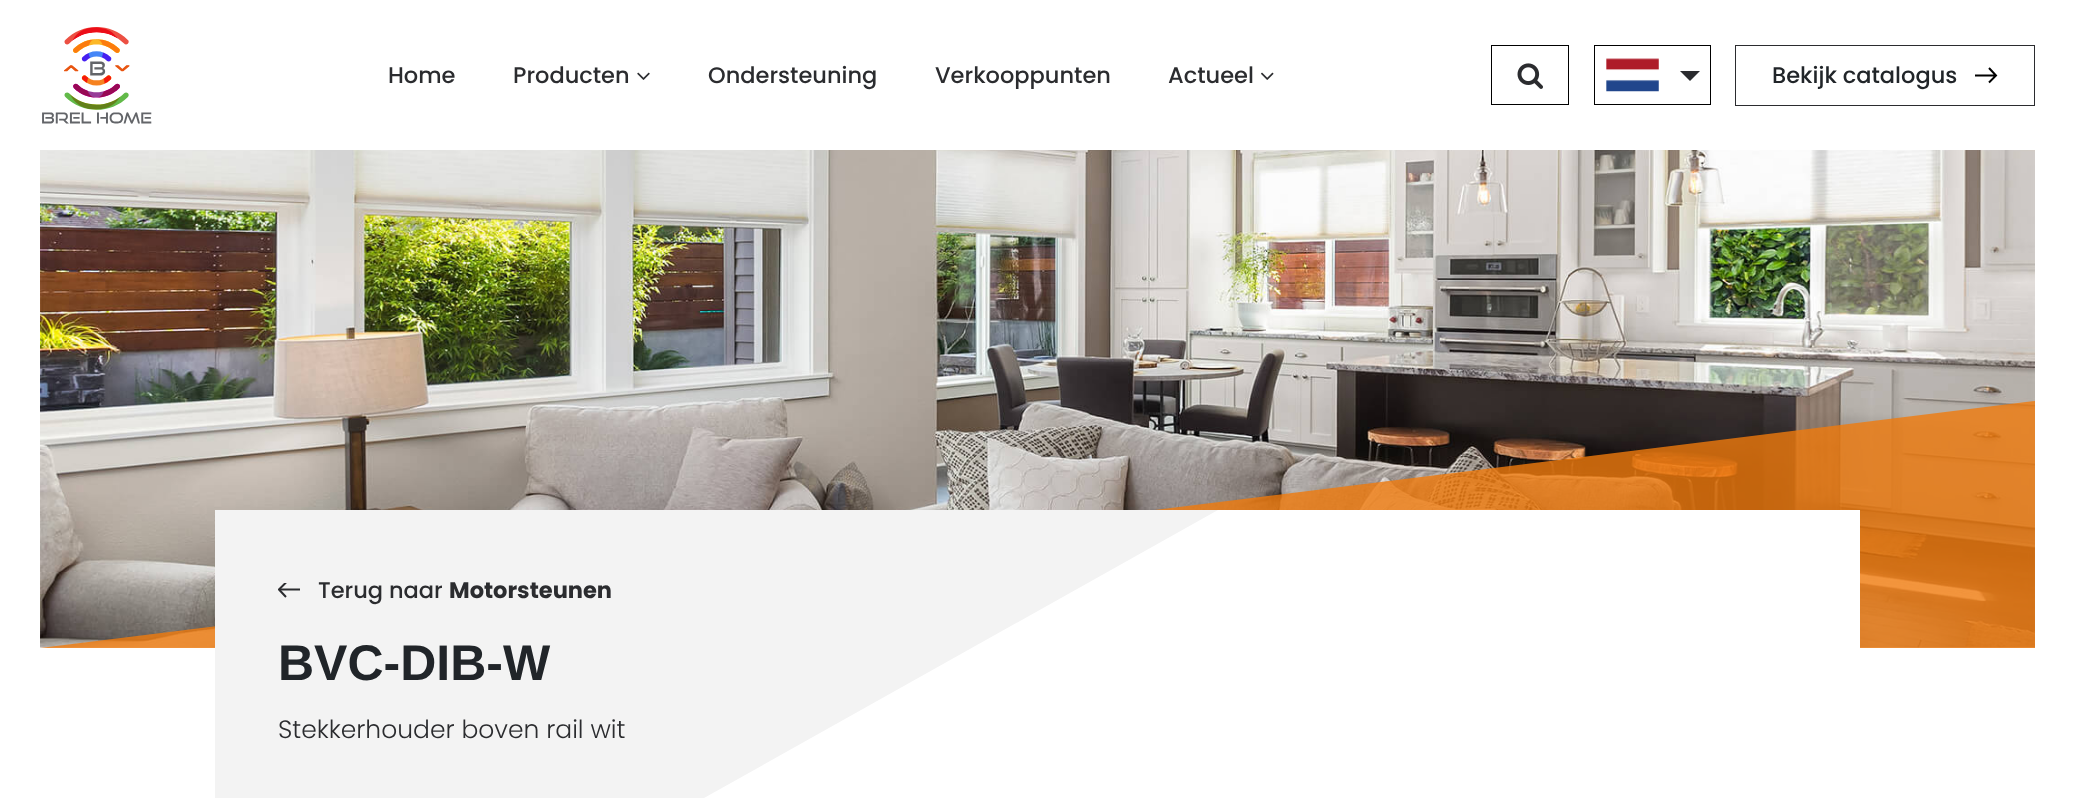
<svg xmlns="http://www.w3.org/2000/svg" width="2074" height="798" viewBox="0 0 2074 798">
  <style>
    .t1 { font: 500 22.5px Poppins; fill: #2b2c2f; }
    .t2 { font: 500 22.5px Poppins; fill: #212529; }
    .t3 { font: bold 22.5px Poppins; fill: #2b2c2f; }
    .t4 { font: bold 50px Liberation Sans; fill: #212529; }
    .t5 { font: 300 25px Poppins; fill: #2b2c2f; }
  </style>
  <defs>
    <clipPath id="clip1"><rect x="278" y="583" width="22" height="15"/></clipPath>
  </defs>
  <rect width="100%" height="100%" fill="#fff"/>
  <image x="42" y="27" width="110" height="97" href="images/1.png"/>
  <text x="388" y="83" class="t1">Home</text>
  <text x="513" y="83" class="t1">Producten</text>
  <image x="637" y="72" width="13" height="8" href="images/2.png"/>
  <text x="708" y="83" class="t1">Ondersteuning</text>
  <text x="935" y="83" class="t1">Verkooppunten</text>
  <text x="1168" y="83" class="t1">Actueel</text>
  <image x="1261" y="72" width="13" height="8" href="images/3.png"/>
  <rect x="1491.5" y="45.5" width="77" height="59" fill="none" stroke="#000"/>
  <image x="1517" y="63" width="26" height="26" href="images/4.png"/>
  <rect x="1594.5" y="45.5" width="116" height="59" fill="none" stroke="#000"/>
  <image x="1606" y="58" width="53" height="34" href="images/5.png"/>
  <path d="M1680 71H1700L1690 81Z" fill="#2b2c2f"/>
  <rect x="1735.5" y="45.5" width="299" height="60" fill="none" stroke="#2b2c2f"/>
  <text x="1772" y="83" class="t2">Bekijk catalogus</text>
  <path d="M1975 75.5H1996M1989 68L1996 75.5L1989 82.5" fill="none" stroke="#000" stroke-width="2"/>
  <image x="40" y="150" width="1995" height="498" href="images/6.png"/>
  <path d="M40 648H2035V401Z" fill="#f07b0dcc"/>
  <rect x="704" y="510" width="1156" height="138" fill="#fff"/>
  <path d="M215 510V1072L1218 510Z" fill="#f3f3f3"/>
  <text x="318" y="598" class="t1">Terug naar</text>
  <path d="M300 589.5H279" fill="none" stroke="#2b2c2f" stroke-width="2"/>
  <g clip-path="url(#clip1)">
    <path d="M286 597L279 589.5L286 582.5" fill="none" stroke="#2b2c2f" stroke-width="2"/>
  </g>
  <text x="449" y="598" class="t3">Motorsteunen</text>
  <text x="278" y="680" class="t4">BVC-DIB-W</text>
  <text x="278" y="738" class="t5">Stekkerhouder boven rail wit</text>
</svg>
